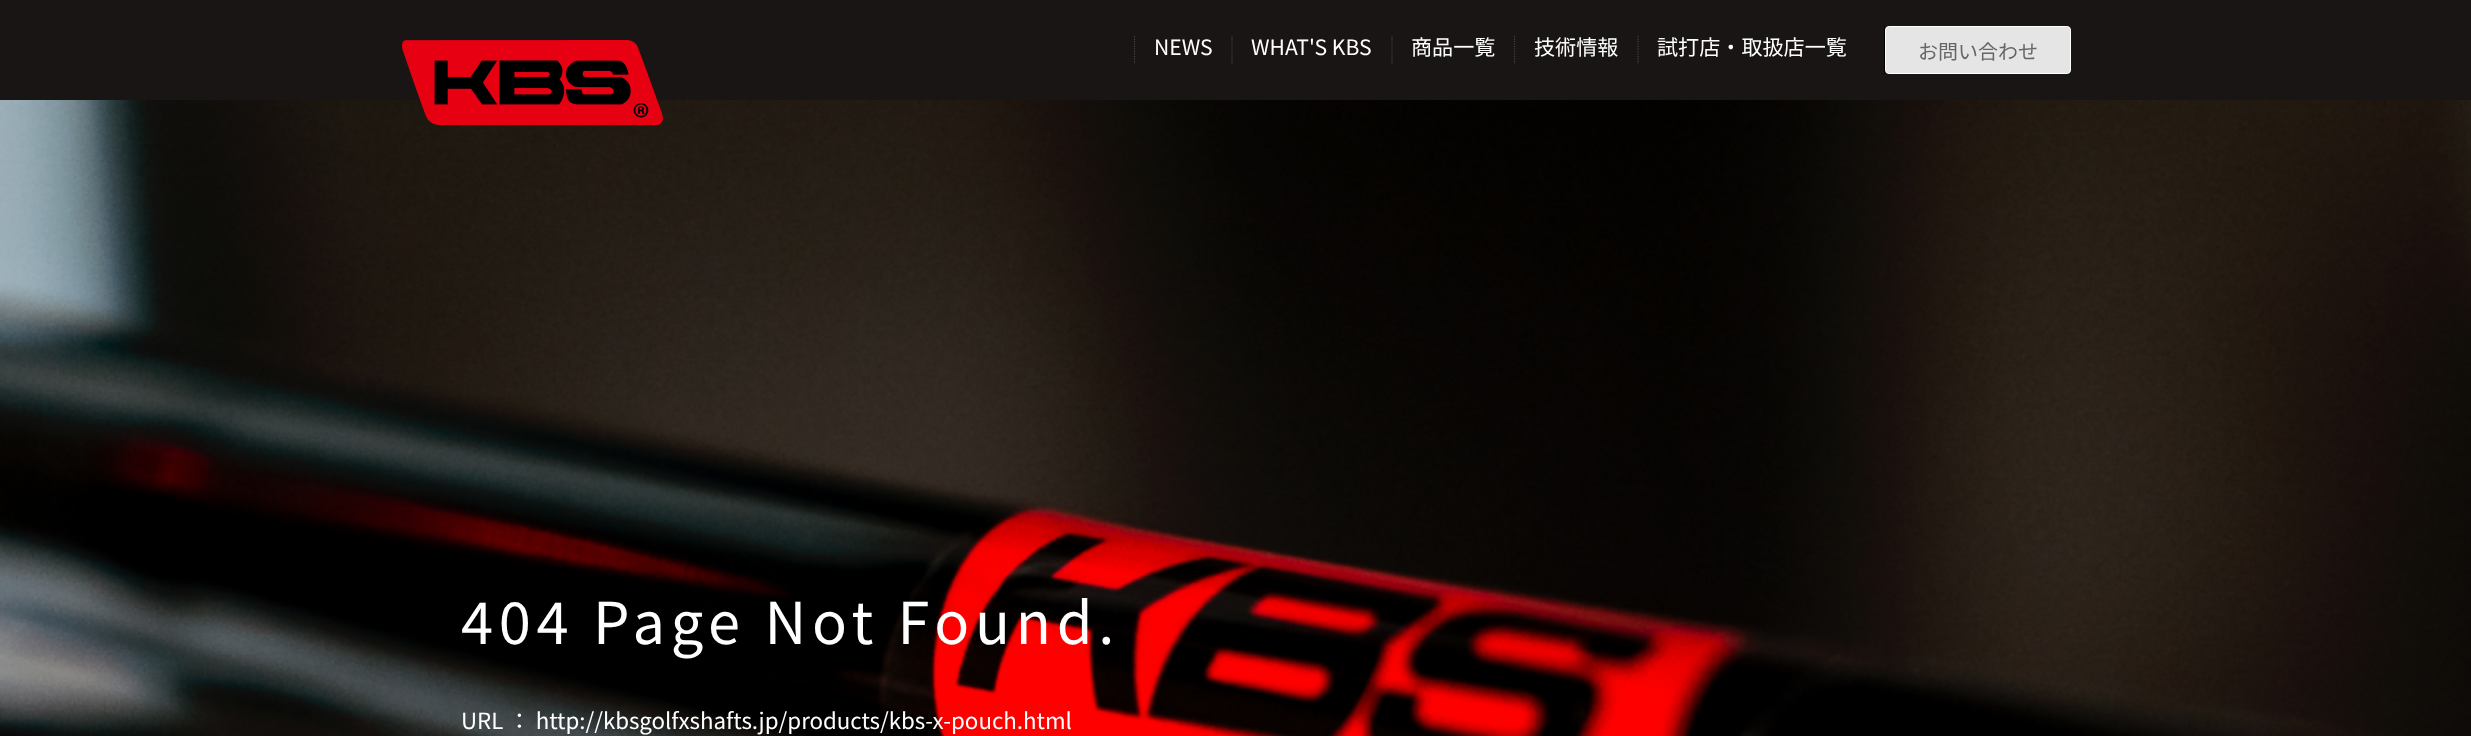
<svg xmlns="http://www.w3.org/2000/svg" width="2471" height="736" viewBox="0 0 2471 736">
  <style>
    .t1 { font: 100 21.1px Noto Sans JP; fill: #fff; }
    .t2 { font: 100 20px Noto Sans JP; fill: #666; }
    .t3 { font: 100 57.75px Noto Sans JP; letter-spacing: 5.75px; fill: #fff; }
    .t4 { font: 100 22.3px Noto Sans JP; fill: #fff; }
  </style>
  <rect width="100%" height="100%" fill="#fff"/>
  <rect x="0" y="0" width="2471" height="100" fill="#191515"/>
  <image x="0" y="100" width="2471" height="636" href="images/2.png"/>
  <image x="402" y="40" width="261" height="85" href="images/1.png"/>
  <path d="M1134.5 36V64" fill="none" stroke="#444" stroke-width="1.2" stroke-dasharray="1.25 1.25"/>
  <text x="1154" y="55" class="t1">NEWS</text>
  <path d="M1232 36V64" fill="none" stroke="#444" stroke-width="1.2" stroke-dasharray="1.25 1.25"/>
  <text x="1251" y="55" class="t1">WHAT'S KBS</text>
  <path d="M1392 36V64" fill="none" stroke="#444" stroke-width="1.2" stroke-dasharray="1.25 1.25"/>
  <text x="1411" y="55" class="t1">商品一覧</text>
  <path d="M1514.5 36V64" fill="none" stroke="#444" stroke-width="1.2" stroke-dasharray="1.25 1.25"/>
  <text x="1534" y="55" class="t1">技術情報</text>
  <path d="M1638 36V64" fill="none" stroke="#444" stroke-width="1.2" stroke-dasharray="1.25 1.25"/>
  <text x="1657" y="55" class="t1">試打店・取扱店一覧</text>
  <rect x="1884" y="26" width="1" height="48" fill="#000"/>
  <rect x="1885.5" y="26.5" width="185" height="47" rx="3.5" fill="#e5e5e5" stroke="#fff"/>
  <text x="1918" y="59" class="t2">お問い合わせ</text>
  <text x="461" y="644" class="t3">404 Page Not Found.</text>
  <text x="461" y="729" class="t4">URL ： http://kbsgolfxshafts.jp/products/kbs-x-pouch.html</text>
</svg>
